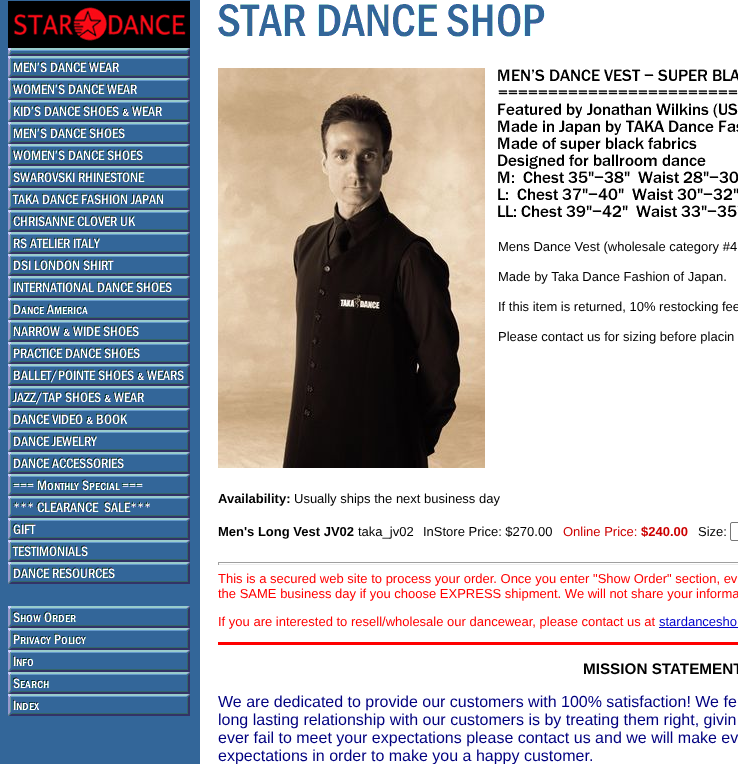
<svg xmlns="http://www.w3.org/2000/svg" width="738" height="764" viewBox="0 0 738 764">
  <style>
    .t1 { font: 13px Liberation Sans; fill: #000; }
    .t2 { font: bold 13px Liberation Sans; fill: #000; }
    .t3 { font: 13px Liberation Sans; fill: #c00; }
    .t4 { font: bold 13px Liberation Sans; fill: #c00; }
    .t5 { font: 13px Liberation Sans; fill: #f00; }
    .t6 { font: 13px Liberation Sans; fill: #00c; }
    .t7 { font: bold 15.25px Liberation Sans; fill: #000; }
    .t8 { font: 16px Liberation Sans; fill: #000080; }
  </style>
  <rect width="100%" height="100%" fill="#fff"/>
  <rect x="0" y="0" width="200" height="764" fill="#369"/>
  <image x="8" y="1" width="182" height="715" href="images/1.png"/>
  <image x="218" y="4" width="327" height="33" href="images/2.png"/>
  <image x="218" y="68" width="267" height="400" href="images/3.png"/>
  <image x="498" y="69" width="240" height="148" href="images/4.png"/>
  <text x="498" y="251" class="t1">Mens Dance Vest (wholesale category #4</text>
  <text x="498" y="281" class="t1">Made by Taka Dance Fashion of Japan.</text>
  <text x="498" y="311" class="t1">If this item is returned, 10% restocking fee</text>
  <text x="498" y="341" class="t1">Please contact us for sizing before placin</text>
  <text x="218" y="503" class="t2">Availability:</text>
  <text x="294" y="503" class="t1">Usually ships the next business day</text>
  <text x="218" y="536" class="t2">Men's Long Vest JV02</text>
  <text x="358" y="536" class="t1">taka_jv02</text>
  <text x="423" y="536" class="t1">InStore Price: $270.00</text>
  <text x="563" y="536" class="t3">Online Price:</text>
  <text x="641" y="536" class="t4">$240.00</text>
  <text x="698" y="536" class="t1">Size:</text>
  <rect x="730.5" y="522.5" width="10" height="18" rx="1.5" fill="none" stroke="#767676"/>
  <rect x="218" y="562" width="520" height="1" fill="#9f9f9f"/>
  <rect x="218" y="564" width="520" height="1" fill="#eee"/>
  <rect x="218" y="562" width="1" height="3" fill="#9f9f9f"/>
  <text x="218" y="583" class="t5">This is a secured web site to process your order. Once you enter "Show Order" section, ev</text>
  <text x="218" y="598" class="t5">the SAME business day if you choose EXPRESS shipment. We will not share your informa</text>
  <text x="218" y="626" class="t5">If you are interested to resell/wholesale our dancewear, please contact us at</text>
  <text x="659" y="626" class="t6">stardancesho</text>
  <rect x="659" y="627" width="79" height="1" fill="#00c"/>
  <rect x="218" y="642" width="520" height="3" fill="#f00"/>
  <text x="583" y="674" class="t7">MISSION STATEMENT</text>
  <text x="218" y="707" class="t8">We are dedicated to provide our customers with 100% satisfaction! We fe</text>
  <text x="218" y="725" class="t8">long lasting relationship with our customers is by treating them right, givin</text>
  <text x="218" y="743" class="t8">ever fail to meet your expectations please contact us and we will make ev</text>
  <text x="218" y="761" class="t8">expectations in order to make you a happy customer.</text>
</svg>
